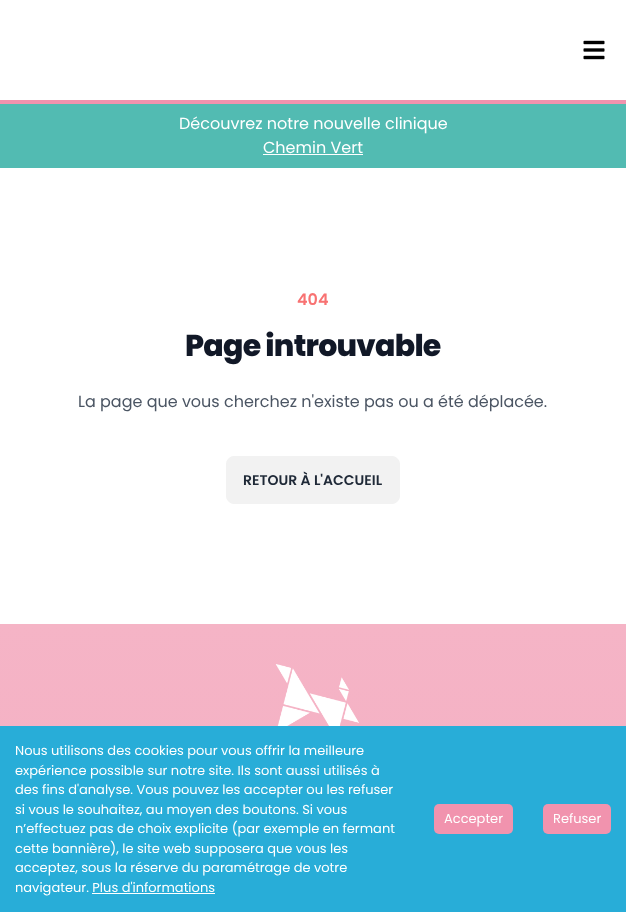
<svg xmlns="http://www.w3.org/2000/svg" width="626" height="912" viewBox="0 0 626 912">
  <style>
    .t1 { font: 16px Poppins; fill: #fff; }
    .t2 { font: 13px Poppins; fill: #fff; }
    .t3 { font: 600 16px Poppins; fill: #f87272; }
    .t4 { font: 800 30px Poppins; letter-spacing: -0.75px; fill: #111827; }
    .t5 { font: 16px Poppins; fill: #4b5563; }
    .t6 { font: 600 14px Poppins; fill: #1f2937; }
  </style>
  <defs>
    <linearGradient id="g1" gradientUnits="userSpaceOnUse" x1="313" y1="624" x2="313" y2="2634"><stop offset="0" stop-color="#f5b4c6"/><stop offset="1" stop-color="#f193ae"/></linearGradient>
  </defs>
  <rect width="100%" height="100%" fill="#fff"/>
  <rect x="0" y="100" width="626" height="4" fill="#f193ae"/>
  <image x="583" y="40" width="22" height="20" href="images/1.png"/>
  <rect x="0" y="104" width="626" height="64" fill="#52bbb2"/>
  <text x="179" y="129" class="t1">Découvrez notre nouvelle clinique</text>
  <text x="263" y="153" class="t1">Chemin Vert</text>
  <rect x="263" y="154" width="100" height="1" fill="#fff"/>
  <rect x="0" y="726" width="626" height="186" fill="#28add8"/>
  <text x="15" y="755" class="t2">Nous utilisons des cookies pour vous offrir la meilleure</text>
  <text x="15" y="775" class="t2">expérience possible sur notre site. Ils sont aussi utilisés à</text>
  <text x="15" y="794" class="t2">des fins d'analyse. Vous pouvez les accepter ou les refuser</text>
  <text x="15" y="814" class="t2">si vous le souhaitez, au moyen des boutons. Si vous</text>
  <text x="15" y="833" class="t2">n’effectuez pas de choix explicite (par exemple en fermant</text>
  <text x="15" y="853" class="t2">cette bannière), le site web supposera que vous les</text>
  <text x="15" y="872" class="t2">acceptez, sous la réserve du paramétrage de votre</text>
  <text x="15" y="892" class="t2">navigateur. Plus d'informations</text>
  <rect x="92" y="893" width="123" height="1" fill="#fff"/>
  <rect x="434" y="804" width="79" height="30" rx="5" fill="#f193ae"/>
  <text x="444" y="823" class="t2">Accepter</text>
  <rect x="543" y="804" width="68" height="30" rx="5" fill="#f193ae"/>
  <text x="553" y="823" class="t2">Refuser</text>
  <text x="297" y="305" class="t3">404</text>
  <text x="185" y="356" class="t4">Page introuvable</text>
  <text x="78" y="407" class="t5">La page que vous cherchez n'existe pas ou a été déplacée.</text>
  <rect x="226.5" y="456.5" width="173" height="47" rx="7.5" fill="#f2f2f2" stroke="#f2f2f2"/>
  <text x="243" y="485" class="t6">RETOUR À L'ACCUEIL</text>
  <rect x="0" y="624" width="626" height="102" fill="url(#g1)"/>
  <image x="275" y="664" width="84" height="62" href="images/2.png"/>
</svg>
